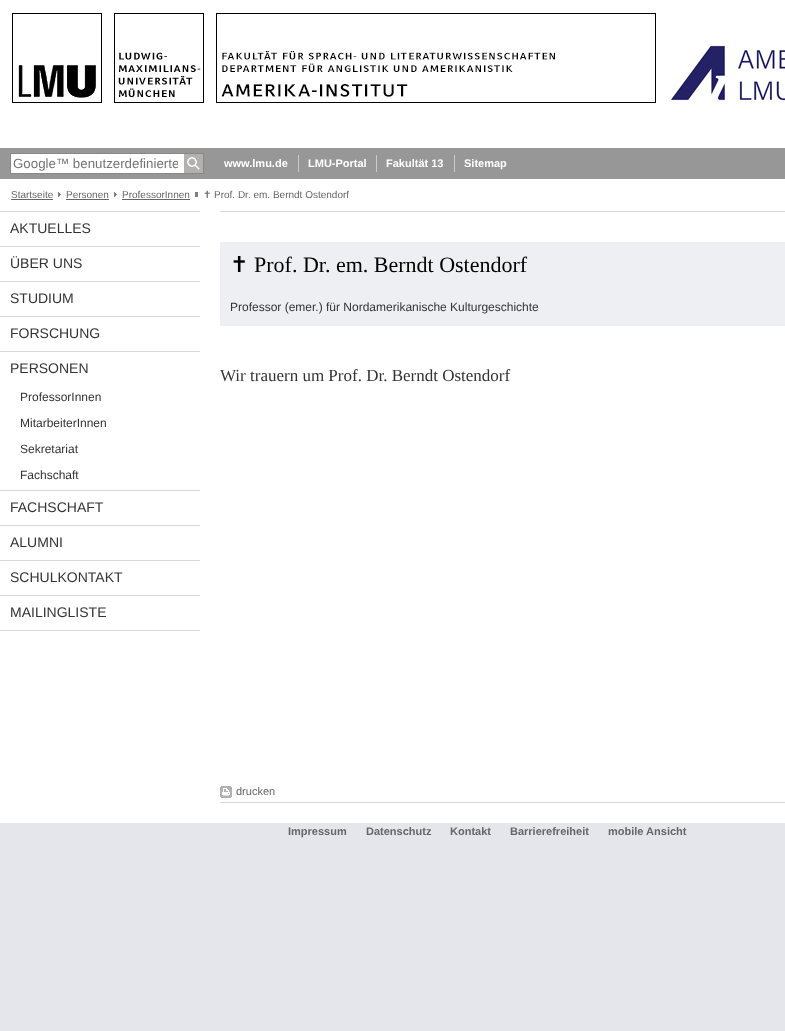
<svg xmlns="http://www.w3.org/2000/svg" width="785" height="1031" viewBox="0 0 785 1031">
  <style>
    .t1 { font: 13.3px Liberation Sans; fill: #757575; }
    .t2 { font: bold 11px Liberation Sans; fill: #fff; }
    .t3 { font: 10px Liberation Sans; fill: #666; }
    .t4 { font: 10px DejaVu Sans; fill: #666; }
    .t5 { font: 14px Liberation Sans; fill: #333; }
    .t6 { font: 12px Liberation Sans; fill: #333; }
    .t7 { font: 22px DejaVu Sans; fill: #000; }
    .t8 { font: 22px Liberation Serif; fill: #000; }
    .t9 { font: 17px Liberation Serif; fill: #333; }
    .t10 { font: 11px Liberation Sans; fill: #666; }
    .t11 { font: bold 11px Liberation Sans; fill: #666; }
  </style>
  <defs>
    <clipPath id="clip1"><rect x="13" y="156" width="165" height="15"/></clipPath>
  </defs>
  <rect width="100%" height="100%" fill="#e4e6eb"/>
  <rect x="0" y="0" width="785" height="823" fill="#fff"/>
  <image x="12" y="13" width="773" height="90" href="images/1.png"/>
  <rect x="0" y="148" width="785" height="31" fill="#979797"/>
  <rect x="11" y="154" width="173" height="19" fill="#fff"/>
  <rect x="10.5" y="153.5" width="193" height="20" fill="none" stroke="#888"/>
  <g clip-path="url(#clip1)">
    <text x="13" y="168" class="t1">Google™ benutzerdefinierte</text>
  </g>
  <image x="184" y="154" width="19" height="19" href="images/2.png"/>
  <text x="224" y="167" class="t2">www.lmu.de</text>
  <rect x="298" y="155" width="1" height="17" fill="#cbcbcb"/>
  <text x="308" y="167" class="t2">LMU-Portal</text>
  <rect x="376" y="155" width="1" height="17" fill="#cbcbcb"/>
  <text x="386" y="167" class="t2">Fakultät 13</text>
  <rect x="454" y="155" width="1" height="17" fill="#cbcbcb"/>
  <text x="464" y="167" class="t2">Sitemap</text>
  <text x="11" y="198" class="t3">Startseite</text>
  <rect x="11" y="199" width="42" height="1" fill="#666"/>
  <image x="58" y="192" width="4" height="5" href="images/3.png"/>
  <text x="66" y="198" class="t3">Personen</text>
  <rect x="66" y="199" width="43" height="1" fill="#666"/>
  <image x="114" y="192" width="4" height="5" href="images/3.png"/>
  <text x="122" y="198" class="t3">ProfessorInnen</text>
  <rect x="122" y="199" width="68" height="1" fill="#666"/>
  <rect x="195" y="192" width="3" height="5" fill="#7f7f7f"/>
  <text x="203" y="198" class="t4">✝</text>
  <text x="214" y="198" class="t3">Prof. Dr. em. Berndt Ostendorf</text>
  <rect x="0" y="211" width="200" height="1" fill="#d8d8d8"/>
  <rect x="0" y="246" width="200" height="1" fill="#d8d8d8"/>
  <text x="10" y="233" class="t5">AKTUELLES</text>
  <rect x="0" y="281" width="200" height="1" fill="#d8d8d8"/>
  <text x="10" y="268" class="t5">ÜBER UNS</text>
  <rect x="0" y="316" width="200" height="1" fill="#d8d8d8"/>
  <text x="10" y="303" class="t5">STUDIUM</text>
  <rect x="0" y="351" width="200" height="1" fill="#d8d8d8"/>
  <text x="10" y="338" class="t5">FORSCHUNG</text>
  <rect x="0" y="490" width="200" height="1" fill="#d8d8d8"/>
  <text x="10" y="373" class="t5">PERSONEN</text>
  <text x="20" y="401" class="t6">ProfessorInnen</text>
  <text x="20" y="427" class="t6">MitarbeiterInnen</text>
  <text x="20" y="453" class="t6">Sekretariat</text>
  <text x="20" y="479" class="t6">Fachschaft</text>
  <rect x="0" y="525" width="200" height="1" fill="#d8d8d8"/>
  <text x="10" y="512" class="t5">FACHSCHAFT</text>
  <rect x="0" y="560" width="200" height="1" fill="#d8d8d8"/>
  <text x="10" y="547" class="t5">ALUMNI</text>
  <rect x="0" y="595" width="200" height="1" fill="#d8d8d8"/>
  <text x="10" y="582" class="t5">SCHULKONTAKT</text>
  <rect x="0" y="630" width="200" height="1" fill="#d8d8d8"/>
  <text x="10" y="617" class="t5">MAILINGLISTE</text>
  <rect x="220" y="211" width="565" height="1" fill="#d8d8d8"/>
  <rect x="220" y="242" width="565" height="84" fill="#edeff2"/>
  <text x="230" y="272" class="t7">✝</text>
  <text x="254" y="272" class="t8">Prof. Dr. em. Berndt Ostendorf</text>
  <text x="230" y="311" class="t6">Professor (emer.) für Nordamerikanische Kulturgeschichte</text>
  <text x="220" y="381" class="t9">Wir trauern um Prof. Dr. Berndt Ostendorf</text>
  <rect x="220" y="802" width="565" height="1" fill="#d8d8d8"/>
  <image x="220" y="786" width="12" height="12" href="images/4.png"/>
  <text x="236" y="795" class="t10">drucken</text>
  <text x="288" y="835" class="t11">Impressum</text>
  <text x="366" y="835" class="t11">Datenschutz</text>
  <text x="450" y="835" class="t11">Kontakt</text>
  <text x="510" y="835" class="t11">Barrierefreiheit</text>
  <text x="608" y="835" class="t11">mobile Ansicht</text>
</svg>
